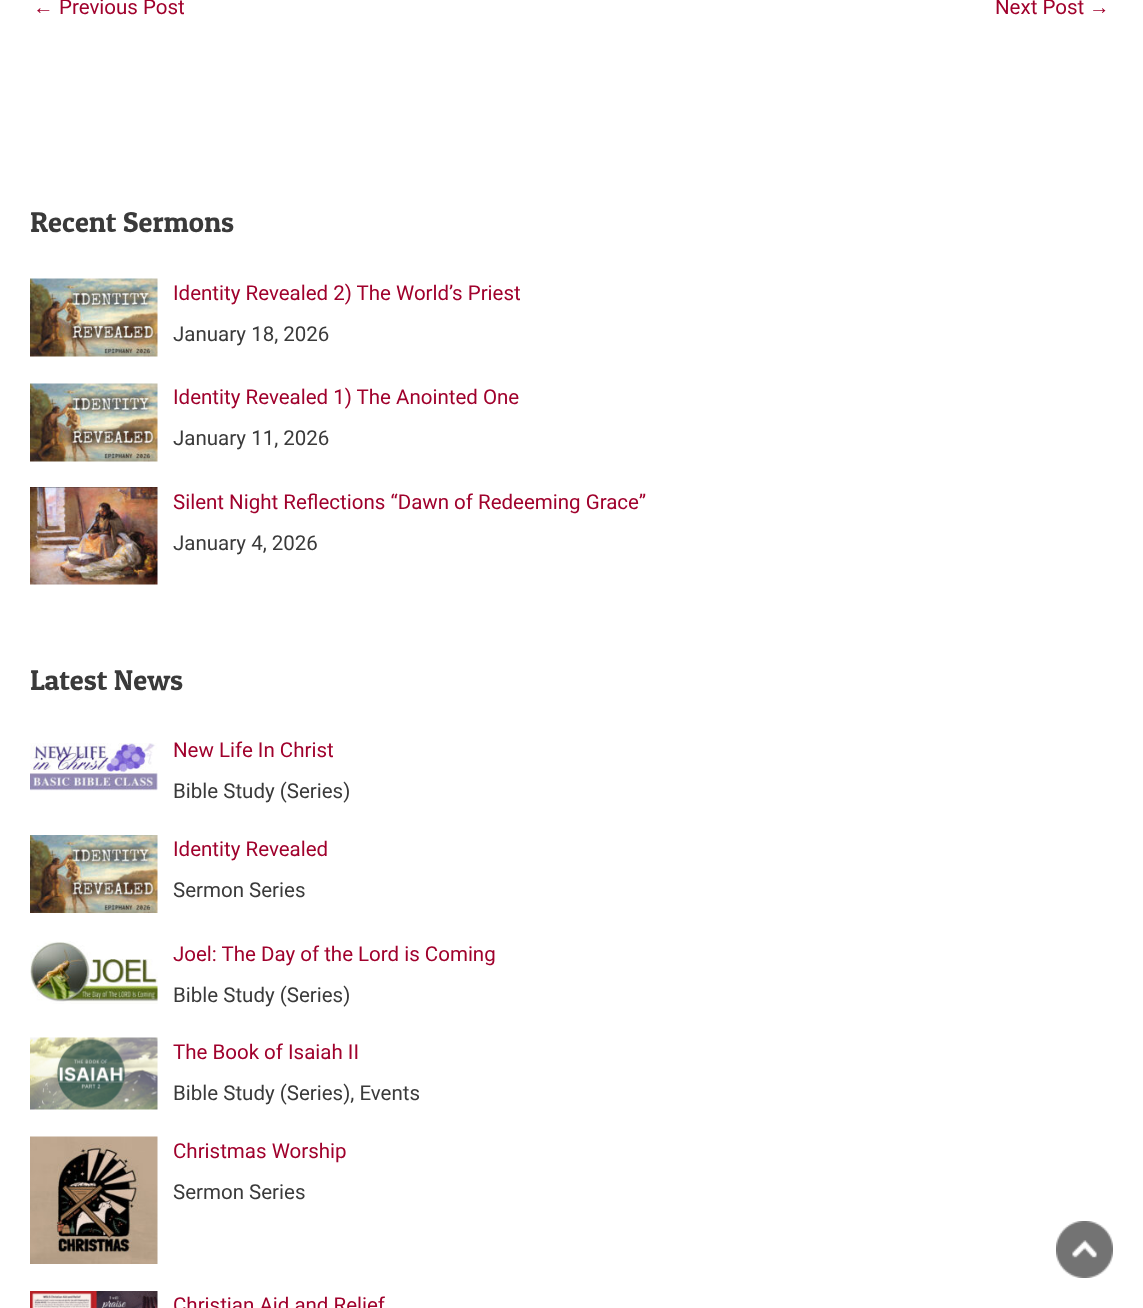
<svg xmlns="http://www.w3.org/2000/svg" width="1143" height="1308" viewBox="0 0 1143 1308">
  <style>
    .t1 { font: 20.5px Liberation Sans; fill: #a0012c; }
    .t2 { font: 20.5px Roboto; fill: #a0012c; }
    .t3 { font: 28.75px Patua One; fill: #3a3a3a; }
    .t4 { font: 20.5px Roboto; fill: #3a3a3a; }
  </style>
  <rect width="100%" height="100%" fill="#fff"/>
  <text x="33" y="14" class="t1">←</text>
  <text x="59" y="14" class="t2">Previous Post</text>
  <text x="995" y="14" class="t2">Next Post</text>
  <text x="1089" y="14" class="t1">→</text>
  <text x="30" y="232" class="t3">Recent Sermons</text>
  <image x="30" y="278" width="128" height="79" href="images/1.png"/>
  <text x="173" y="300" class="t2">Identity Revealed 2) The World’s Priest</text>
  <text x="173" y="341" class="t4">January 18, 2026</text>
  <image x="30" y="383" width="128" height="79" href="images/1.png"/>
  <text x="173" y="404" class="t2">Identity Revealed 1) The Anointed One</text>
  <text x="173" y="445" class="t4">January 11, 2026</text>
  <image x="30" y="487" width="128" height="98" href="images/2.png"/>
  <text x="173" y="509" class="t2">Silent Night Reflections “Dawn of Redeeming Grace”</text>
  <text x="173" y="550" class="t4">January 4, 2026</text>
  <text x="30" y="690" class="t3">Latest News</text>
  <image x="30" y="743" width="128" height="48" href="images/3.png"/>
  <text x="173" y="757" class="t2">New Life In Christ</text>
  <text x="173" y="798" class="t4">Bible Study (Series)</text>
  <image x="30" y="835" width="128" height="78" href="images/4.png"/>
  <text x="173" y="856" class="t2">Identity Revealed</text>
  <text x="173" y="897" class="t4">Sermon Series</text>
  <image x="30" y="941" width="128" height="63" href="images/5.png"/>
  <text x="173" y="961" class="t2">Joel: The Day of the Lord is Coming</text>
  <text x="173" y="1002" class="t4">Bible Study (Series)</text>
  <image x="30" y="1037" width="128" height="73" href="images/6.png"/>
  <text x="173" y="1059" class="t2">The Book of Isaiah II</text>
  <text x="173" y="1100" class="t4">Bible Study (Series), Events</text>
  <image x="30" y="1136" width="128" height="128" href="images/7.png"/>
  <text x="173" y="1158" class="t2">Christmas Worship</text>
  <text x="173" y="1199" class="t4">Sermon Series</text>
  <image x="30" y="1291" width="128" height="17" href="images/8.png"/>
  <text x="173" y="1312" class="t2">Christian Aid and Relief</text>
  <image x="1056" y="1221" width="57" height="57" href="images/9.png"/>
</svg>
